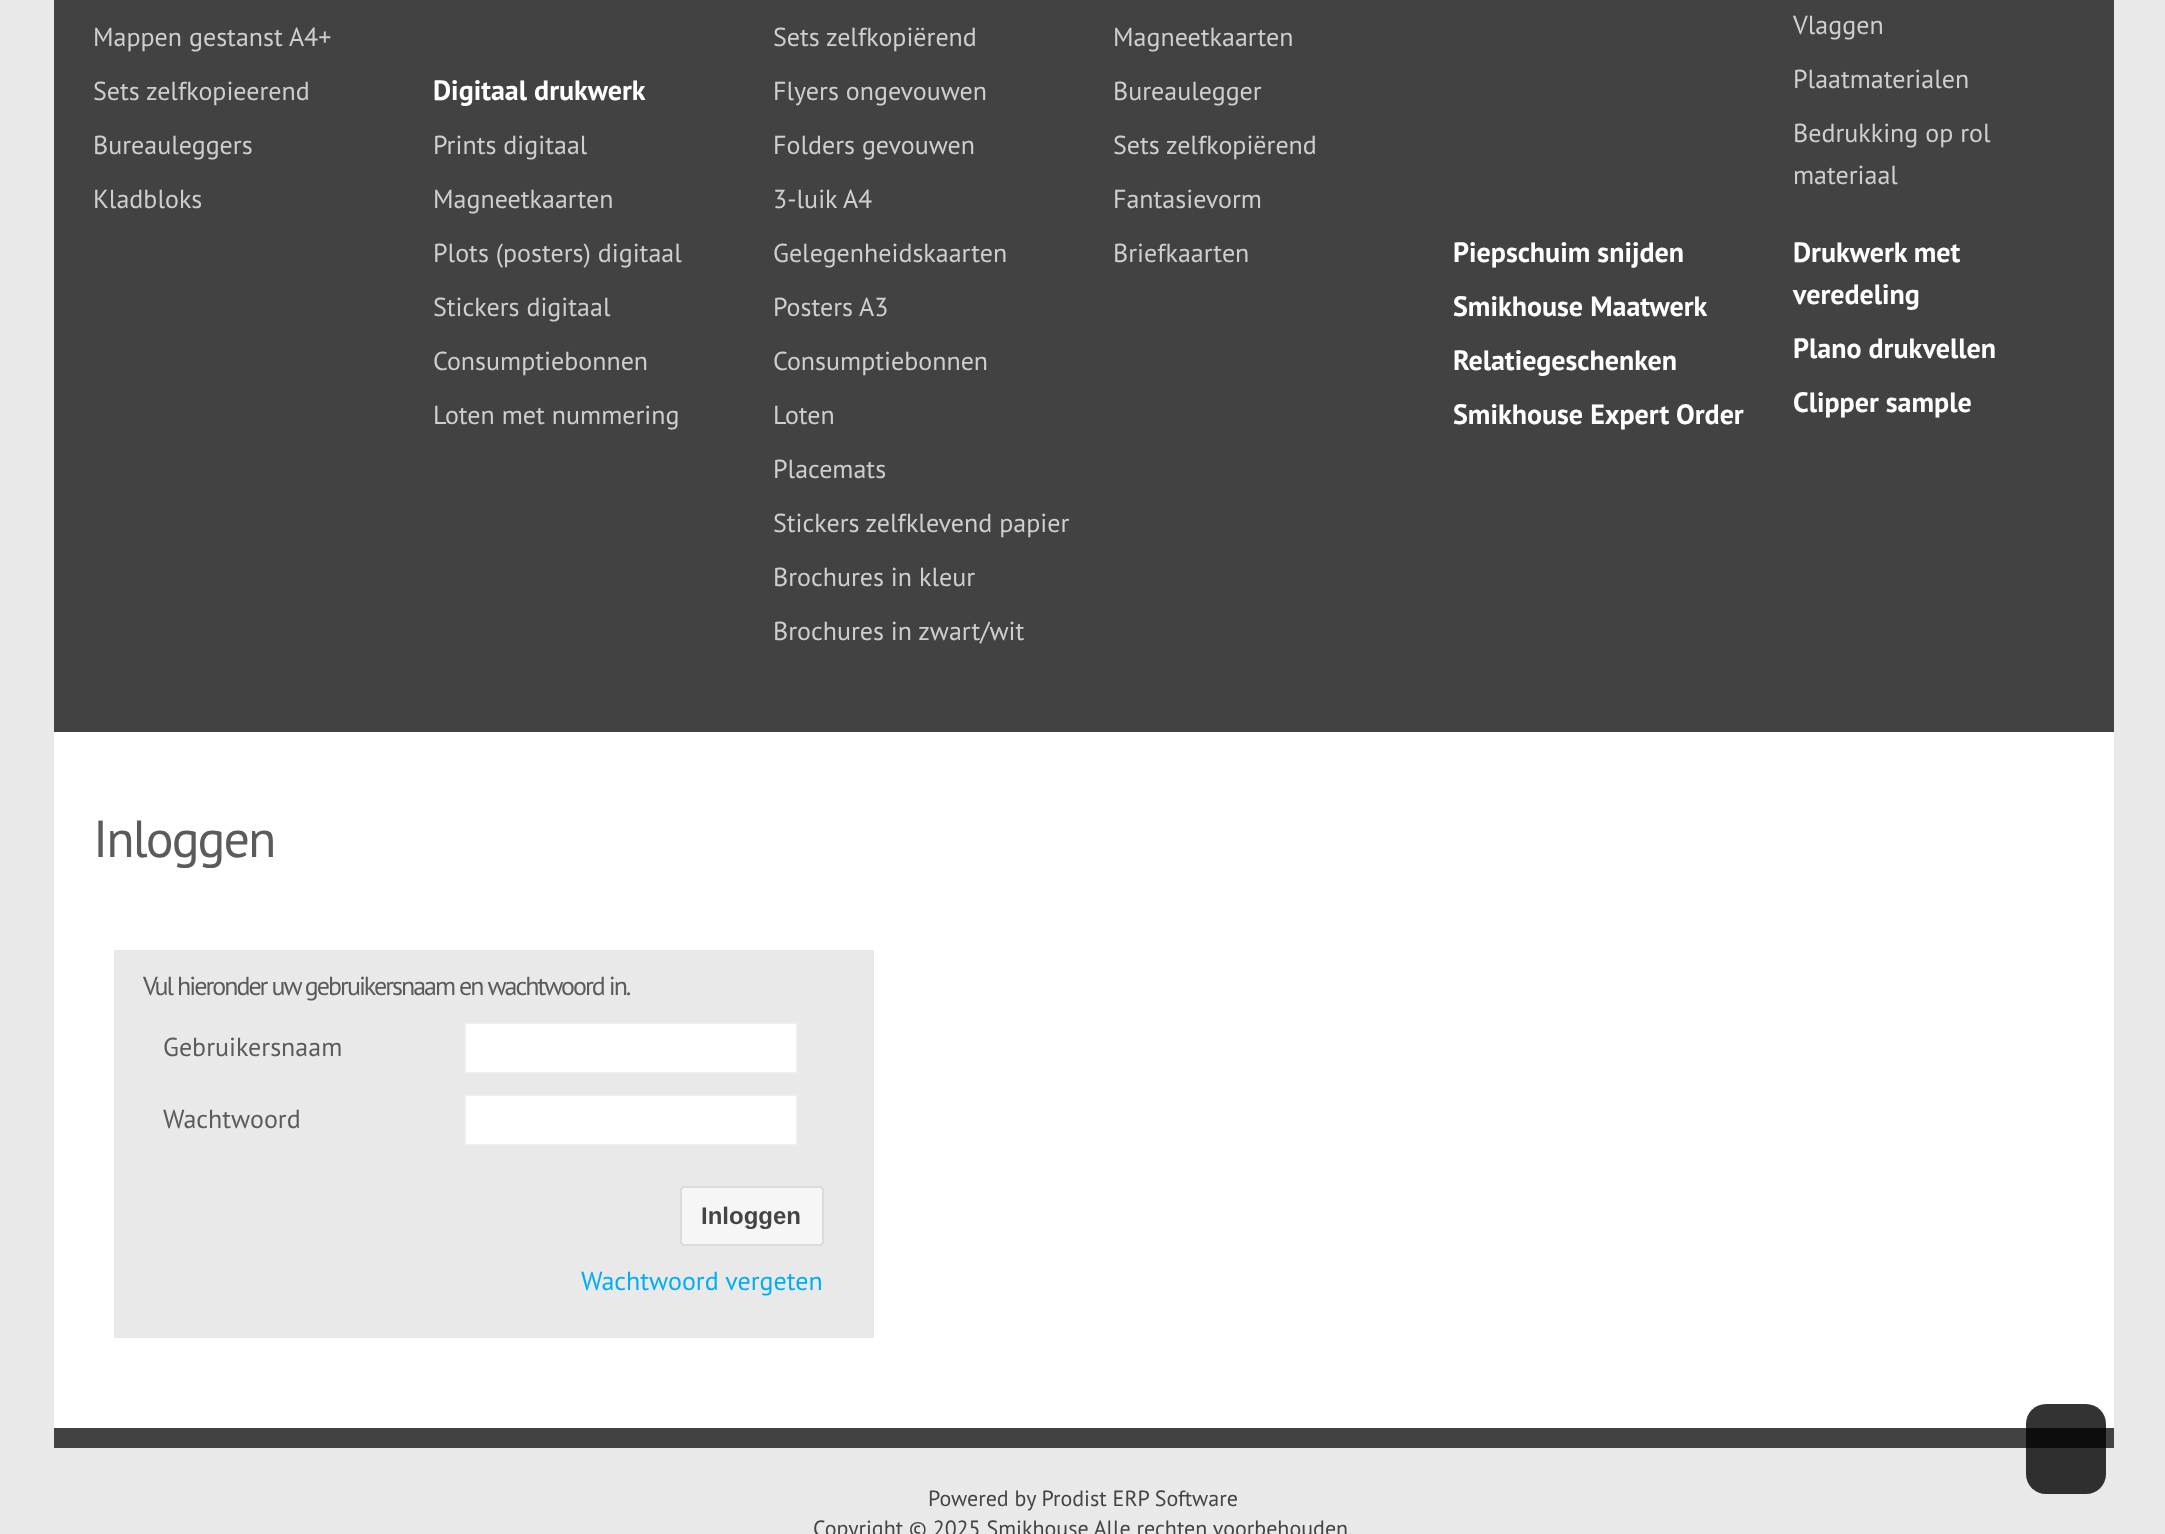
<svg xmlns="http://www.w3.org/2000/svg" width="2165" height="1534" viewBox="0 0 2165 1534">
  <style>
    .t1 { font: 26px PT Sans; fill: #cecece; }
    .t2 { font: bold 28px PT Sans; fill: #fff; }
    .t3 { font: 52px PT Sans; letter-spacing: -2px; fill: #5c5b5b; }
    .t4 { font: 26px PT Sans; letter-spacing: -2px; fill: #5c5b5b; }
    .t5 { font: 26px PT Sans; fill: #5c5b5b; }
    .t6 { font: bold 24px Liberation Sans; fill: #444; }
    .t7 { font: 26px PT Sans; fill: #01aef0; }
    .t8 { font: 22px PT Sans; fill: #444; }
  </style>
  <rect width="100%" height="100%" fill="#e9e9e9"/>
  <rect x="54" y="0" width="2060" height="732" fill="#424242"/>
  <text x="93" y="46" class="t1">Mappen gestanst A4+</text>
  <text x="93" y="100" class="t1">Sets zelfkopieerend</text>
  <text x="93" y="154" class="t1">Bureauleggers</text>
  <text x="93" y="208" class="t1">Kladbloks</text>
  <text x="433" y="100" class="t2">Digitaal drukwerk</text>
  <text x="433" y="154" class="t1">Prints digitaal</text>
  <text x="433" y="208" class="t1">Magneetkaarten</text>
  <text x="433" y="262" class="t1">Plots (posters) digitaal</text>
  <text x="433" y="316" class="t1">Stickers digitaal</text>
  <text x="433" y="370" class="t1">Consumptiebonnen</text>
  <text x="433" y="424" class="t1">Loten met nummering</text>
  <text x="773" y="46" class="t1">Sets zelfkopiërend</text>
  <text x="773" y="100" class="t1">Flyers ongevouwen</text>
  <text x="773" y="154" class="t1">Folders gevouwen</text>
  <text x="773" y="208" class="t1">3-luik A4</text>
  <text x="773" y="262" class="t1">Gelegenheidskaarten</text>
  <text x="773" y="316" class="t1">Posters A3</text>
  <text x="773" y="370" class="t1">Consumptiebonnen</text>
  <text x="773" y="424" class="t1">Loten</text>
  <text x="773" y="478" class="t1">Placemats</text>
  <text x="773" y="532" class="t1">Stickers zelfklevend papier</text>
  <text x="773" y="586" class="t1">Brochures in kleur</text>
  <text x="773" y="640" class="t1">Brochures in zwart/wit</text>
  <text x="1113" y="46" class="t1">Magneetkaarten</text>
  <text x="1113" y="100" class="t1">Bureaulegger</text>
  <text x="1113" y="154" class="t1">Sets zelfkopiërend</text>
  <text x="1113" y="208" class="t1">Fantasievorm</text>
  <text x="1113" y="262" class="t1">Briefkaarten</text>
  <text x="1453" y="262" class="t2">Piepschuim snijden</text>
  <text x="1453" y="316" class="t2">Smikhouse Maatwerk</text>
  <text x="1453" y="370" class="t2">Relatiegeschenken</text>
  <text x="1453" y="424" class="t2">Smikhouse Expert Order</text>
  <text x="1793" y="34" class="t1">Vlaggen</text>
  <text x="1793" y="88" class="t1">Plaatmaterialen</text>
  <text x="1793" y="142" class="t1">Bedrukking op rol</text>
  <text x="1793" y="184" class="t1">materiaal</text>
  <text x="1793" y="262" class="t2">Drukwerk met</text>
  <text x="1793" y="304" class="t2">veredeling</text>
  <text x="1793" y="358" class="t2">Plano drukvellen</text>
  <text x="1793" y="412" class="t2">Clipper sample</text>
  <rect x="54" y="732" width="2060" height="696" fill="#fff"/>
  <rect x="54" y="1428" width="2060" height="20" fill="#424242"/>
  <text x="93" y="857" class="t3">Inloggen</text>
  <rect x="114" y="950" width="760" height="388" fill="#e9e9e9"/>
  <text x="143" y="995" class="t4">Vul hieronder uw gebruikersnaam en wachtwoord in.</text>
  <text x="163" y="1056" class="t5">Gebruikersnaam</text>
  <rect x="465" y="1023" width="332" height="50" fill="#fff" stroke="#eee" stroke-width="2"/>
  <text x="163" y="1128" class="t5">Wachtwoord</text>
  <rect x="465" y="1095" width="332" height="50" fill="#fff" stroke="#eee" stroke-width="2"/>
  <rect x="681" y="1187" width="142" height="58" rx="3" fill="#f6f6f6" stroke="#dcdcdc" stroke-width="2"/>
  <text x="701" y="1224" class="t6">Inloggen</text>
  <text x="581" y="1290" class="t7">Wachtwoord vergeten</text>
  <text x="928" y="1506" class="t8">Powered by Prodist ERP Software</text>
  <text x="813" y="1536" class="t8">Copyright © 2025 Smikhouse Alle rechten voorbehouden.</text>
  <rect x="2026" y="1404" width="80" height="90" rx="20" fill="#000000cc"/>
</svg>
